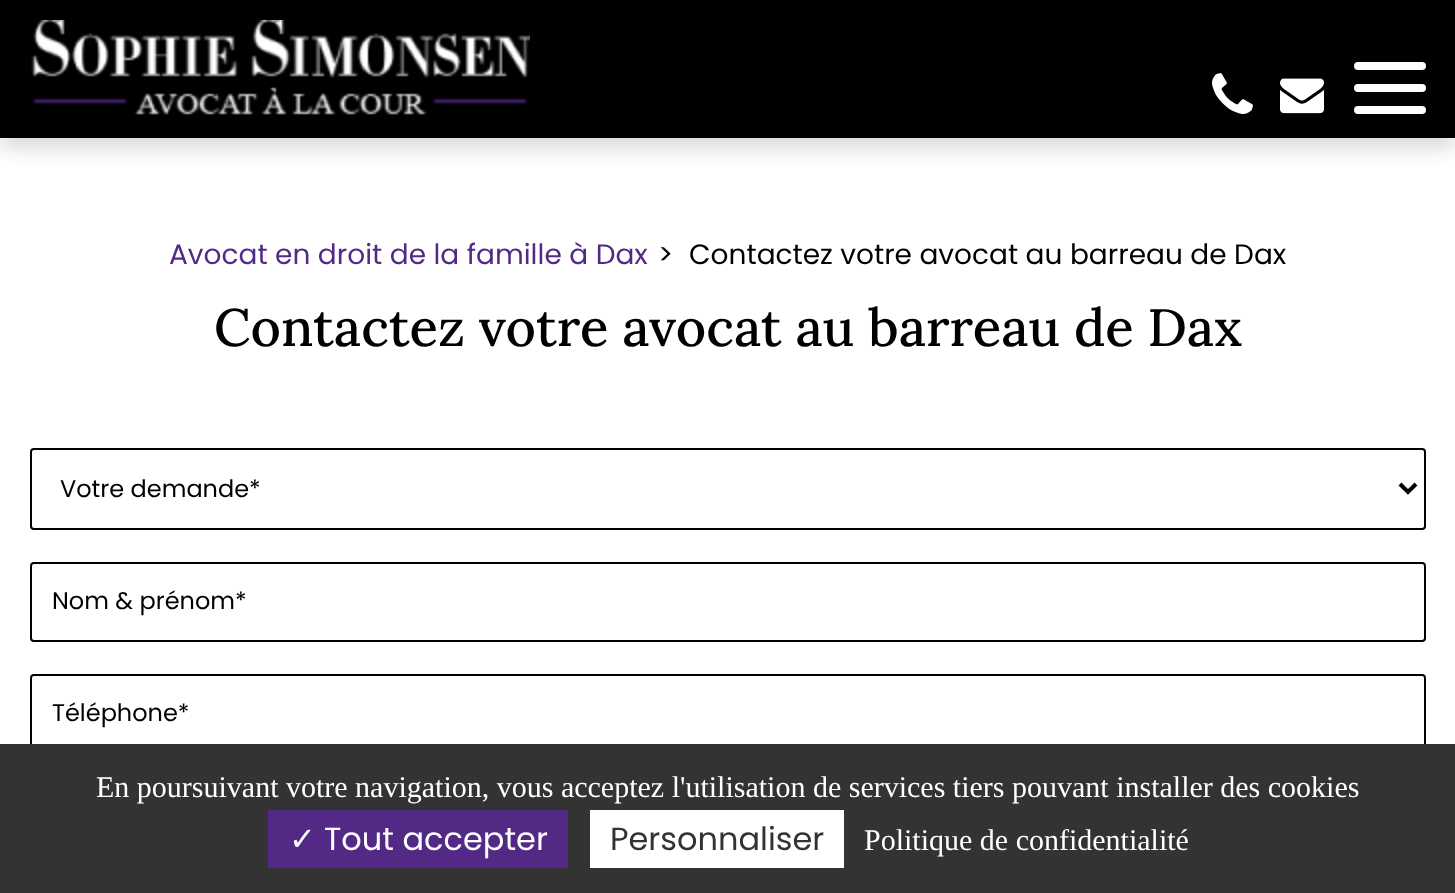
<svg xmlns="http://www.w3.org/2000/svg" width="1455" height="893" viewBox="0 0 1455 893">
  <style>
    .t1 { font: 28px Poppins; fill: #522a86; }
    .t2 { font: 28px Poppins; fill: #000; }
    .t3 { font: 500 52.6px Lora; fill: #000; }
    .t4 { font: 24px Poppins; fill: #000; }
    .t5 { font: 30px Liberation Serif; fill: #fff; }
    .t6 { font: 32px DejaVu Sans; fill: #fff; }
    .t7 { font: 32px Poppins; fill: #fff; }
    .t8 { font: 32px Poppins; fill: #333; }
  </style>
  <rect width="100%" height="100%" fill="#fff"/>
  <rect x="0" y="10" width="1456" height="138" fill="#00000026" filter="blur(10px)"/>
  <rect x="0" y="0" width="1455" height="138" fill="#000"/>
  <image x="31" y="20" width="499" height="95" href="images/1.png"/>
  <image x="1212" y="73" width="41" height="41" href="images/2.png"/>
  <image x="1280" y="78" width="44" height="36" href="images/3.png"/>
  <rect x="1354" y="62" width="72" height="8" rx="4" fill="#fff"/>
  <rect x="1354" y="84" width="72" height="8" rx="4" fill="#fff"/>
  <rect x="1354" y="106" width="72" height="8" rx="4" fill="#fff"/>
  <text x="169" y="264" class="t1">Avocat en droit de la famille à Dax</text>
  <text x="658" y="264" class="t2">&gt;</text>
  <text x="689" y="264" class="t2">Contactez votre avocat au barreau de Dax</text>
  <text x="214" y="346" class="t3">Contactez votre avocat au barreau de Dax</text>
  <rect x="31" y="449" width="1394" height="80" rx="3" fill="none" stroke="#000" stroke-width="2"/>
  <path d="M1400 484L1408 492L1416 484" fill="none" stroke="#000" stroke-width="4"/>
  <text x="60" y="497" class="t4">Votre demande*</text>
  <rect x="31" y="563" width="1394" height="78" rx="3" fill="none" stroke="#000" stroke-width="2"/>
  <text x="52" y="609" class="t4">Nom &amp; prénom*</text>
  <rect x="31" y="675" width="1394" height="78" rx="3" fill="none" stroke="#000" stroke-width="2"/>
  <text x="52" y="721" class="t4">Téléphone*</text>
  <rect x="0" y="744" width="1455" height="149" fill="#333"/>
  <text x="96" y="797" class="t5">En poursuivant votre navigation, vous acceptez l'utilisation de services tiers pouvant installer des cookies</text>
  <rect x="268" y="810" width="300" height="58" fill="#522a86"/>
  <text x="289" y="850" class="t6">✓</text>
  <text x="324" y="850" class="t7">Tout accepter</text>
  <rect x="590" y="810" width="254" height="58" fill="#fff"/>
  <text x="610" y="850" class="t8">Personnaliser</text>
  <text x="864" y="850" class="t5">Politique de confidentialité</text>
</svg>
